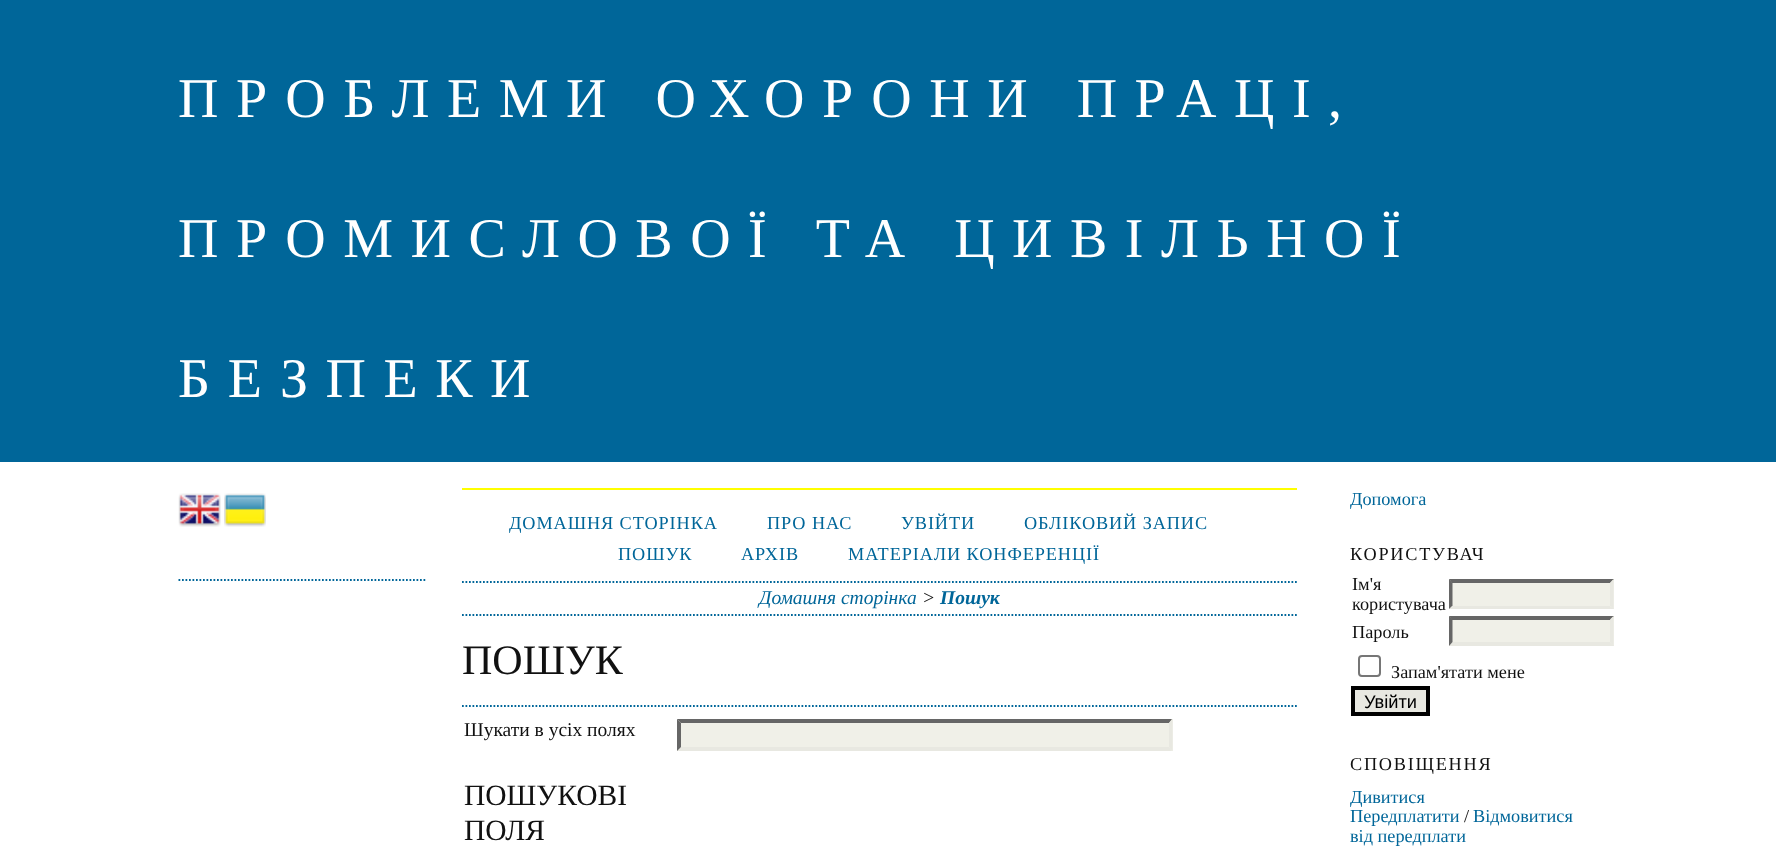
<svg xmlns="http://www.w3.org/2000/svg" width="1776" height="863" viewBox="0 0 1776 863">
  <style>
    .t1 { font: 56px Liberation Serif; letter-spacing: 17.5px; fill: #fff; }
    .t2 { font: 18.25px Liberation Serif; letter-spacing: 0.9px; fill: #069; }
    .t3 { font: italic 19.5px Liberation Serif; fill: #069; }
    .t4 { font: italic 19.5px Liberation Serif; fill: #111; }
    .t5 { font: italic bold 19.5px Liberation Serif; fill: #069; }
    .t6 { font: 42px Liberation Serif; fill: #111; }
    .t7 { font: 19.5px Liberation Serif; fill: #111; }
    .t8 { font: 29.5px Liberation Serif; fill: #111; }
    .t9 { font: 18.25px Liberation Serif; fill: #069; }
    .t10 { font: 18.25px Liberation Serif; letter-spacing: 1.75px; fill: #111; }
    .t11 { font: 18.25px Liberation Serif; fill: #111; }
    .t12 { font: 18.25px Liberation Sans; fill: #000; }
  </style>
  <rect width="100%" height="100%" fill="#fff"/>
  <rect x="0" y="0" width="1776" height="462" fill="#069"/>
  <text x="178" y="117" class="t1">ПРОБЛЕМИ ОХОРОНИ ПРАЦІ,</text>
  <text x="178" y="257" class="t1">ПРОМИСЛОВОЇ ТА ЦИВІЛЬНОЇ</text>
  <text x="178" y="397" class="t1">БЕЗПЕКИ</text>
  <rect x="462" y="488" width="835" height="2" fill="#ff0"/>
  <path d="M462 582H1297" fill="none" stroke="#069" stroke-width="1.8" stroke-dasharray="1.75 1.75"/>
  <text x="509" y="529" class="t2">ДОМАШНЯ СТОРІНКА</text>
  <text x="767" y="529" class="t2">ПРО НАС</text>
  <text x="901" y="529" class="t2">УВІЙТИ</text>
  <text x="1024" y="529" class="t2">ОБЛІКОВИЙ ЗАПИС</text>
  <text x="618" y="560" class="t2">ПОШУК</text>
  <text x="741" y="560" class="t2">АРХІВ</text>
  <text x="848" y="560" class="t2">МАТЕРІАЛИ КОНФЕРЕНЦІЇ</text>
  <path d="M462 615H1297" fill="none" stroke="#069" stroke-width="1.8" stroke-dasharray="1.75 1.75"/>
  <text x="759" y="604" class="t3">Домашня сторінка</text>
  <text x="922" y="604" class="t4">&gt;</text>
  <text x="940" y="604" class="t5">Пошук</text>
  <text x="462" y="674" class="t6">ПОШУК</text>
  <path d="M462 706H1297" fill="none" stroke="#069" stroke-width="1.8" stroke-dasharray="1.75 1.75"/>
  <text x="464" y="736" class="t7">Шукати в усіх полях</text>
  <rect x="677" y="719" width="496" height="32" fill="#f0f0e8"/>
  <path d="M677 719H1172L1169 723H681Z" fill="#666"/>
  <path d="M1172.5 719V751L1169 747V723Z" fill="#e8e8e1"/>
  <path d="M1172 751H677L681 747H1169Z" fill="#e8e8e1"/>
  <path d="M677 751V719L681 723V747Z" fill="#666"/>
  <text x="464" y="805" class="t8">ПОШУКОВІ</text>
  <text x="464" y="840" class="t8">ПОЛЯ</text>
  <path d="M178.5 580H427" fill="none" stroke="#069" stroke-width="1.8" stroke-dasharray="1.75 1.75"/>
  <image x="178" y="493" width="43" height="34" href="images/1.png"/>
  <image x="224" y="493" width="42" height="34" href="images/2.png"/>
  <text x="1350" y="505" class="t9">Допомога</text>
  <text x="1350" y="560" class="t10">КОРИСТУВАЧ</text>
  <text x="1352" y="590" class="t11">Ім'я</text>
  <text x="1352" y="610" class="t11">користувача</text>
  <rect x="1449" y="579" width="165" height="30" fill="#f0f0e8"/>
  <path d="M1449 579H1614L1610 583H1452Z" fill="#666"/>
  <path d="M1613.5 579V609L1610 605.5V583Z" fill="#e8e8e1"/>
  <path d="M1614 609H1449L1452 606H1610Z" fill="#e8e8e1"/>
  <path d="M1449 609V579L1452.5 583V605.5Z" fill="#666"/>
  <text x="1352" y="638" class="t11">Пароль</text>
  <rect x="1449" y="616" width="165" height="30" fill="#f0f0e8"/>
  <path d="M1449 616H1614L1610 620H1452Z" fill="#666"/>
  <path d="M1613.5 616V646L1610 642V619.5Z" fill="#e8e8e1"/>
  <path d="M1614 646H1449L1452 642H1610Z" fill="#e8e8e1"/>
  <path d="M1449 646V616L1452.5 619.5V642Z" fill="#666"/>
  <rect x="1359" y="656" width="21" height="20" rx="3" fill="none" stroke="#767676" stroke-width="2"/>
  <text x="1391" y="678" class="t11">Запам'ятати мене</text>
  <rect x="1353" y="688" width="75" height="26" fill="#e8e8e1" stroke="#000" stroke-width="4"/>
  <text x="1364" y="708" class="t12">Увійти</text>
  <text x="1350" y="770" class="t10">СПОВІЩЕННЯ</text>
  <text x="1350" y="803" class="t9">Дивитися</text>
  <text x="1350" y="822" class="t9">Передплатити</text>
  <text x="1464" y="822" class="t11">/</text>
  <text x="1473" y="822" class="t9">Відмовитися</text>
  <text x="1350" y="842" class="t9">від передплати</text>
</svg>
